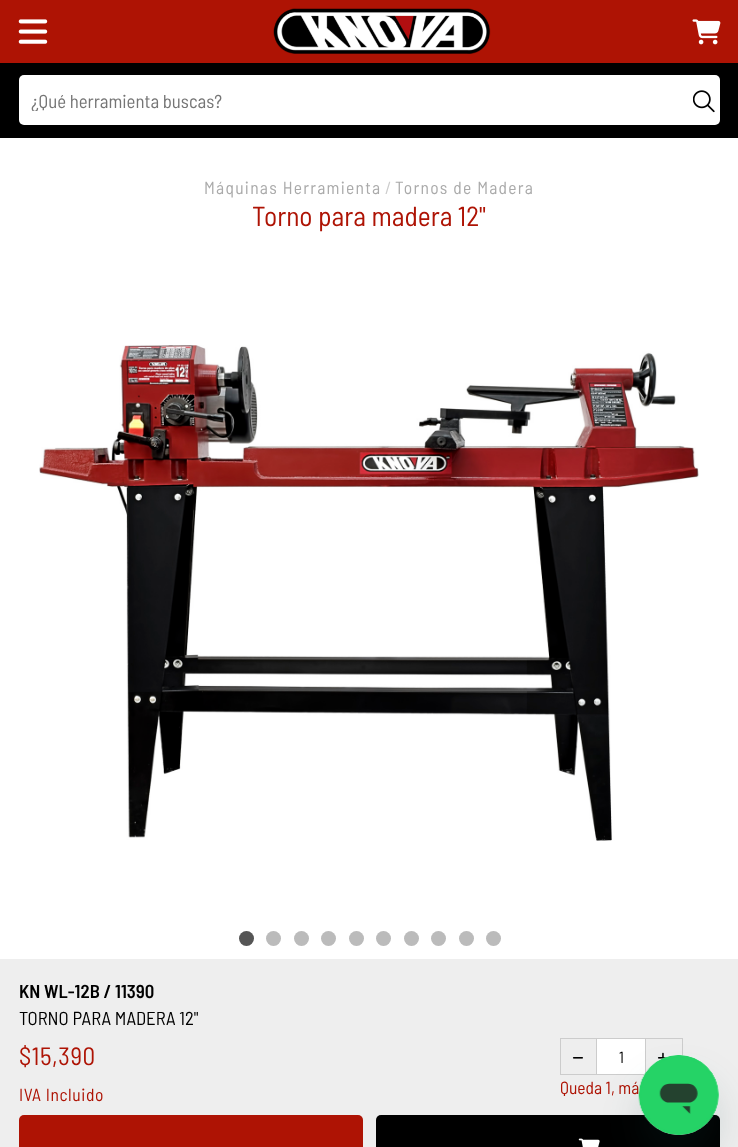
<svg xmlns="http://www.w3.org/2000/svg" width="738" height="1147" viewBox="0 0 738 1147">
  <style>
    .t1 { font: 18.75px Barlow Semi Condensed; fill: #757575; }
    .t2 { font: 17.5px Barlow Semi Condensed; letter-spacing: 1.25px; fill: #aaa; }
    .t3 { font: 17.5px Barlow Semi Condensed; fill: #ccc; }
    .t4 { font: 27.5px Barlow Semi Condensed; fill: #ae1304; }
    .t5 { font: 600 18.75px Barlow Semi Condensed; fill: #000; }
    .t6 { font: 18.75px Barlow Semi Condensed; fill: #000; }
    .t7 { font: 25px Barlow Semi Condensed; letter-spacing: 0.6px; fill: #ae1304; }
    .t8 { font: 17.5px Barlow Semi Condensed; letter-spacing: 0.6px; fill: #ae1304; }
    .t9 { font: 16px Barlow Semi Condensed; fill: #000; }
    .t10 { font: 17.5px Barlow Semi Condensed; fill: #ae1304; }
  </style>
  <defs>
    <clipPath id="clip1"><rect x="31" y="89" width="672" height="22"/></clipPath>
  </defs>
  <rect width="100%" height="100%" fill="#000"/>
  <rect x="0" y="0" width="738" height="63" fill="#ae1304"/>
  <image x="18" y="19" width="30" height="25" href="images/1.png"/>
  <image x="273" y="8" width="218" height="46" href="images/2.png"/>
  <image x="692" y="19" width="29" height="26" href="images/3.png"/>
  <rect x="19" y="75" width="701" height="50" rx="5" fill="#fff"/>
  <g clip-path="url(#clip1)">
    <text x="31" y="108" class="t1">¿Qué herramienta buscas?</text>
  </g>
  <image x="693" y="90" width="22" height="23" href="images/4.png"/>
  <rect x="0" y="138" width="738" height="821" fill="#fff"/>
  <text x="204" y="194" class="t2">Máquinas Herramienta</text>
  <text x="385" y="194" class="t3">/</text>
  <text x="395" y="194" class="t2">Tornos de Madera</text>
  <text x="252" y="226" class="t4">Torno para madera 12"</text>
  <image x="39" y="345" width="660" height="496" href="images/5.png"/>
  <circle cx="246.5" cy="938.5" r="7.5" fill="#555"/>
  <circle cx="273.5" cy="938.5" r="7.5" fill="#bbb"/>
  <circle cx="301.5" cy="938.5" r="7.5" fill="#bbb"/>
  <circle cx="328.5" cy="938.5" r="7.5" fill="#bbb"/>
  <circle cx="356.5" cy="938.5" r="7.5" fill="#bbb"/>
  <circle cx="383.5" cy="938.5" r="7.5" fill="#bbb"/>
  <circle cx="411.5" cy="938.5" r="7.5" fill="#bbb"/>
  <circle cx="438.5" cy="938.5" r="7.5" fill="#bbb"/>
  <circle cx="466.5" cy="938.5" r="7.5" fill="#bbb"/>
  <circle cx="493.5" cy="938.5" r="7.5" fill="#bbb"/>
  <rect x="0" y="959" width="738" height="188" fill="#eee"/>
  <text x="19" y="998" class="t5">KN WL-12B / 11390</text>
  <text x="19" y="1025" class="t6">TORNO PARA MADERA 12"</text>
  <text x="19" y="1065" class="t7">$15,390</text>
  <text x="19" y="1101" class="t8">IVA Incluido</text>
  <rect x="560.5" y="1038.5" width="37" height="36" fill="none" stroke="#ccc"/>
  <image x="572" y="1057" width="11" height="2" href="images/6.png"/>
  <rect x="596.5" y="1038.5" width="49" height="36" fill="#fff" stroke="#ccc"/>
  <text x="619" y="1063" class="t9">1</text>
  <rect x="645.5" y="1038.5" width="37" height="36" fill="none" stroke="#ccc"/>
  <image x="657" y="1052" width="10" height="7" href="images/7.png"/>
  <text x="560" y="1094" class="t10">Queda 1, má</text>
  <rect x="19" y="1115" width="344" height="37" rx="5" fill="#ae1304"/>
  <rect x="376" y="1115" width="344" height="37" rx="5" fill="#000"/>
  <image x="578" y="1138" width="22" height="9" href="images/8.png"/>
  <rect x="639" y="1080" width="80" height="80" rx="40" fill="#17494d26" filter="blur(19px)"/>
  <image x="638" y="1055" width="81" height="80" href="images/9.png"/>
</svg>
